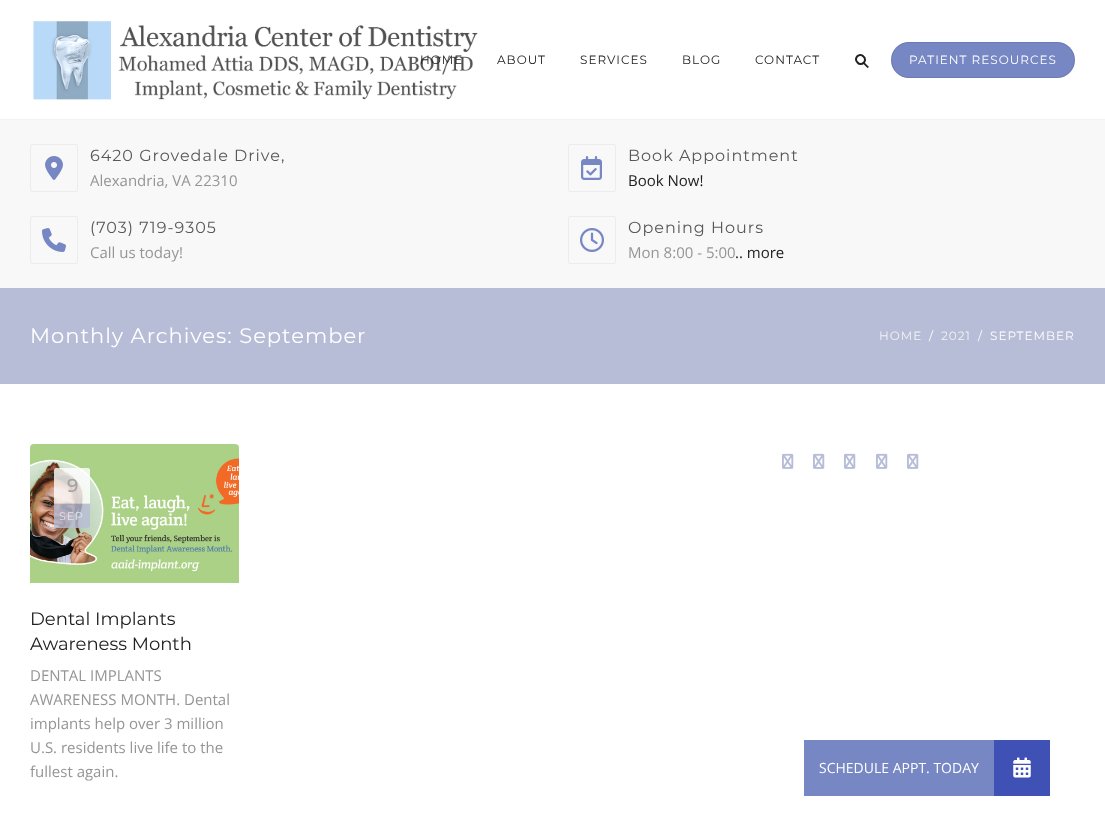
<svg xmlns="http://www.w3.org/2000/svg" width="1105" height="838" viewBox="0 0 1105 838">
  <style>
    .t1 { font: 100 12px Montserrat; letter-spacing: 1px; fill: #212121; }
    .t2 { font: 100 12px Montserrat; letter-spacing: 1px; fill: #fff; }
    .t3 { font: 100 16px Montserrat; letter-spacing: 1px; fill: #595959; }
    .t4 { font: 15px Open Sans; fill: #959595; }
    .t5 { font: 15px Open Sans; fill: #212121; }
    .t6 { font: 100 21px Montserrat; letter-spacing: 1px; fill: #fff; }
    .t7 { font: 100 12px Montserrat; letter-spacing: 1px; fill: #f1f2f7; }
    .t8 { font: bold 18px Montserrat; fill: #a4a2a2; }
    .t9 { font: 100 11px Montserrat; letter-spacing: 1px; fill: #e3e3e8; }
    .t10 { font: 100 18px Montserrat; fill: #212121; }
    .t11 { font: 14px Open Sans; fill: #fff; }
  </style>
  <rect width="100%" height="100%" fill="#fff"/>
  <rect x="0" y="119" width="1105" height="1" fill="#f2f2f2"/>
  <image x="33" y="21" width="445" height="79" href="images/1.png"/>
  <text x="420" y="64" class="t1">HOME</text>
  <text x="497" y="64" class="t1">ABOUT</text>
  <text x="580" y="64" class="t1">SERVICES</text>
  <text x="682" y="64" class="t1">BLOG</text>
  <text x="755" y="64" class="t1">CONTACT</text>
  <path d="M857.5 62.5C853 58.5 859.5 52 863.5 56.5M863.5 56.5C868 60.5 861.5 67 857.5 62.5" fill="none" stroke="#212121" stroke-width="2"/>
  <path d="M864 62L869 67L867.5 68L862.5 63Z" fill="#212121"/>
  <rect x="891" y="42" width="184" height="36" rx="18" fill="#7787c4"/>
  <rect x="891.5" y="42.5" width="183" height="35" rx="17.5" fill="none" stroke="#0000001a"/>
  <text x="909" y="64" class="t2">PATIENT RESOURCES</text>
  <rect x="0" y="120" width="1105" height="168" fill="#f8f8f8"/>
  <rect x="30.5" y="144.5" width="47" height="47" rx="1.5" fill="none" stroke="#ececec"/>
  <image x="45" y="156" width="18" height="24" href="images/2.png"/>
  <text x="90" y="161" class="t3">6420 Grovedale Drive,</text>
  <text x="90" y="186" class="t4">Alexandria, VA 22310</text>
  <rect x="568.5" y="144.5" width="47" height="47" rx="1.5" fill="none" stroke="#ececec"/>
  <image x="581" y="156" width="21" height="24" href="images/3.png"/>
  <text x="628" y="161" class="t3">Book Appointment</text>
  <text x="628" y="186" class="t5">Book Now!</text>
  <rect x="30.5" y="216.5" width="47" height="47" rx="1.5" fill="none" stroke="#ececec"/>
  <image x="42" y="228" width="24" height="24" href="images/4.png"/>
  <text x="90" y="233" class="t3">(703) 719-9305</text>
  <text x="90" y="258" class="t4">Call us today!</text>
  <rect x="568.5" y="216.5" width="47" height="47" rx="1.5" fill="none" stroke="#ececec"/>
  <image x="580" y="228" width="24" height="24" href="images/5.png"/>
  <text x="628" y="233" class="t3">Opening Hours</text>
  <text x="628" y="258" class="t4">Mon 8:00 - 5:00</text>
  <text x="735" y="258" class="t5">.. more</text>
  <rect x="0" y="288" width="1105" height="96" fill="#b8bdd7"/>
  <text x="30" y="343" class="t6">Monthly Archives: September</text>
  <text x="879" y="340" class="t7">HOME</text>
  <text x="929" y="340" class="t2">/</text>
  <text x="941" y="340" class="t7">2021</text>
  <text x="978" y="340" class="t2">/</text>
  <text x="990" y="340" class="t2">SEPTEMBER</text>
  <image x="782" y="453" width="12" height="16" href="images/6.png"/>
  <image x="813" y="453" width="12" height="16" href="images/6.png"/>
  <image x="844" y="453" width="12" height="16" href="images/6.png"/>
  <image x="876" y="453" width="12" height="16" href="images/6.png"/>
  <image x="907" y="453" width="12" height="16" href="images/6.png"/>
  <image x="30" y="444" width="209" height="139" href="images/7.png"/>
  <path d="M56 468H88C89 468 90 469 90 470V504H54V470C54 469 55 468 56 468Z" fill="#ffffffcc"/>
  <rect x="54" y="503" width="36" height="1" fill="#00000014"/>
  <text x="67" y="492" class="t8">9</text>
  <path d="M54 504H90V526C90 527 89 528 88 528H56C55 528 54 527 54 526Z" fill="#b8bdd7cc"/>
  <text x="59" y="520" class="t9">SEP</text>
  <text x="30" y="625" class="t10">Dental Implants</text>
  <text x="30" y="650" class="t10">Awareness Month</text>
  <text x="30" y="681" class="t4">DENTAL IMPLANTS</text>
  <text x="30" y="705" class="t4">AWARENESS MONTH. Dental</text>
  <text x="30" y="729" class="t4">implants help over 3 million</text>
  <text x="30" y="753" class="t4">U.S. residents live life to the</text>
  <text x="30" y="777" class="t4">fullest again.</text>
  <rect x="994" y="740" width="56" height="56" fill="#3f51b5"/>
  <rect x="804" y="740" width="190" height="56" fill="#7787c4"/>
  <text x="819" y="773" class="t11">SCHEDULE APPT. TODAY</text>
  <image x="1013" y="757" width="18" height="21" href="images/8.png"/>
</svg>
